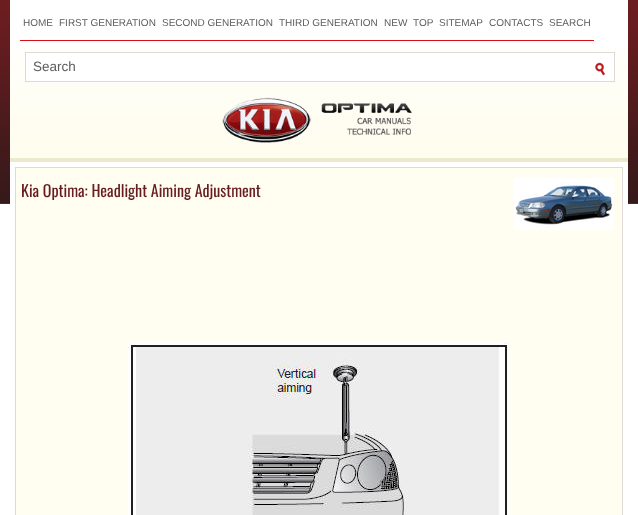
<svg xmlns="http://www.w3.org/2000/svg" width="638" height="515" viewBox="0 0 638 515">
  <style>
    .t1 { font: 10px Liberation Sans; fill: #5d5d5d; }
    .t2 { font: 13.5px Liberation Sans; fill: #5d5d5d; }
    .t3 { font: 16px Oswald; fill: #681d21; }
  </style>
  <rect width="100%" height="100%" fill="#fff"/>
  <image x="0" y="0" width="638" height="204" href="images/1.png"/>
  <rect x="10" y="0" width="618" height="204" fill="#fff"/>
  <image x="10" y="49" width="618" height="109" href="images/2.png"/>
  <rect x="10" y="158" width="618" height="4" fill="#ede9cb"/>
  <rect x="20" y="40" width="574" height="1" fill="#d60e16"/>
  <text x="23" y="26" class="t1">HOME</text>
  <text x="59" y="26" class="t1">FIRST GENERATION</text>
  <text x="162" y="26" class="t1">SECOND GENERATION</text>
  <text x="279" y="26" class="t1">THIRD GENERATION</text>
  <text x="384" y="26" class="t1">NEW</text>
  <text x="413" y="26" class="t1">TOP</text>
  <text x="439" y="26" class="t1">SITEMAP</text>
  <text x="489" y="26" class="t1">CONTACTS</text>
  <text x="549" y="26" class="t1">SEARCH</text>
  <rect x="25.5" y="52.5" width="589" height="29" fill="#fff" stroke="#e1d8d8"/>
  <text x="33" y="71" class="t2">Search</text>
  <image x="595" y="62" width="10" height="14" href="images/3.png"/>
  <image x="222" y="97" width="190" height="46" href="images/4.png"/>
  <rect x="15.5" y="167.5" width="607" height="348" fill="#fffef0" stroke="#e1d8d8"/>
  <text x="21" y="197" class="t3">Kia Optima: Headlight Aiming Adjustment</text>
  <image x="514" y="178" width="100" height="52" href="images/5.png"/>
  <image x="128" y="342" width="382" height="173" href="images/6.png"/>
</svg>
